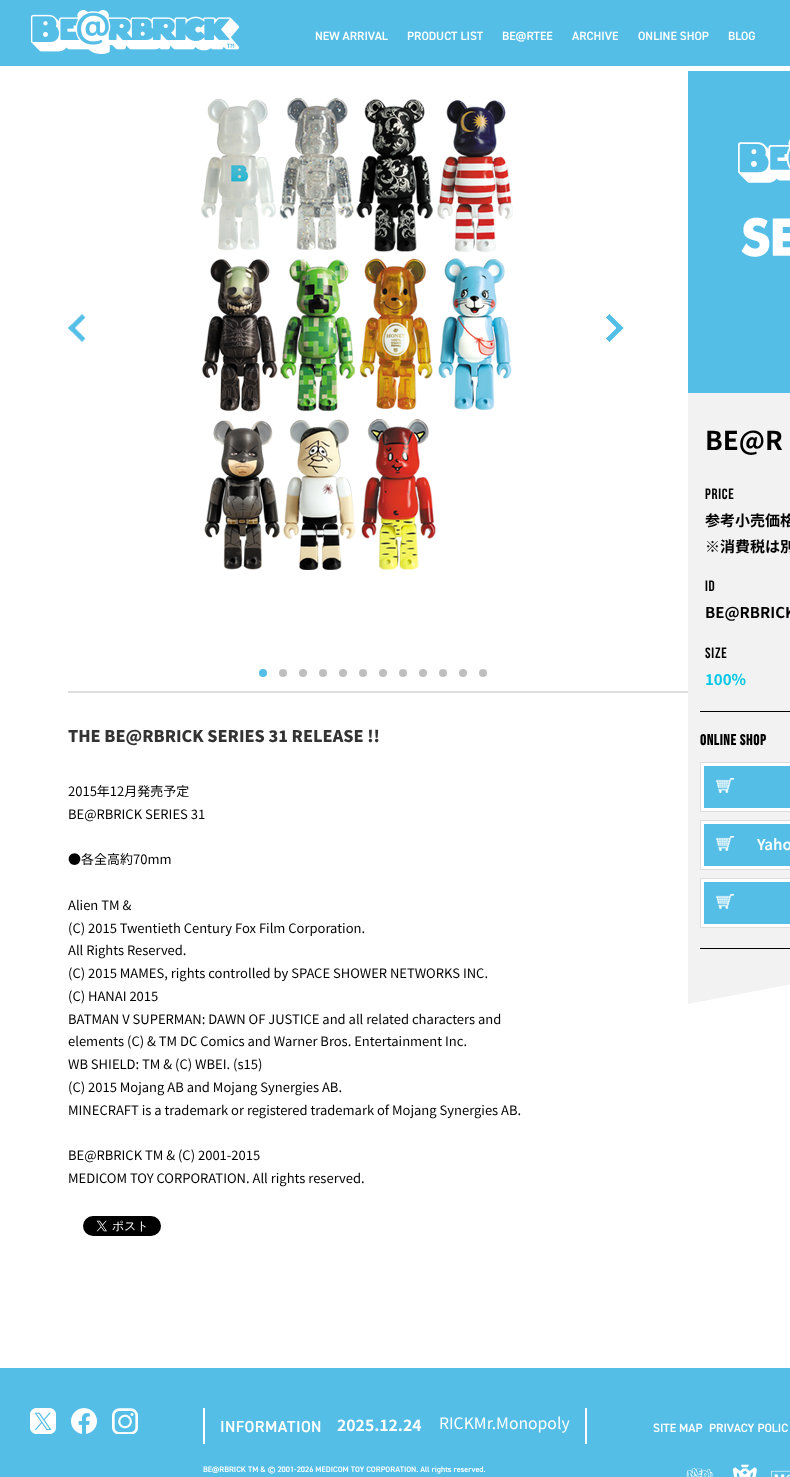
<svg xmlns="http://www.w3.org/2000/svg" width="790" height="1477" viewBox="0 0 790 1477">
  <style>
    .t1 { font: 600 12px 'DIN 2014'; fill: #fff; }
    .t2 { font: bold 26px Noto Sans JP; fill: #000; }
    .t3 { font: 15px Bebas Neue; letter-spacing: 0.75px; fill: #000; }
    .t4 { font: bold 15px Noto Sans JP; fill: #000; }
    .t5 { font: bold 15px Noto Sans JP; fill: #00c8e6; }
    .t6 { font: bold 15px Bebas Neue; letter-spacing: 0.75px; fill: #000; }
    .t7 { font: 100 15px Noto Sans JP; fill: #fff; }
    .t8 { font: 900 16px Noto Sans JP; fill: #333; }
    .t9 { font: 13px Noto Sans JP; fill: #000; }
    .t10 { font: 600 16px 'DIN 2014'; letter-spacing: 0.4px; fill: #fff; }
    .t11 { font: bold 15.75px Noto Sans JP; fill: #fff; }
    .t12 { font: 15.75px Noto Sans JP; fill: #fff; }
    .t13 { font: 600 8px 'DIN 2014'; fill: #fff; }
  </style>
  <rect width="100%" height="100%" fill="#fff"/>
  <rect x="0" y="0" width="790" height="66" fill="#54bee7"/>
  <image x="31" y="10" width="208" height="44" href="images/1.png"/>
  <text x="315" y="40" class="t1">NEW ARRIVAL</text>
  <text x="407" y="40" class="t1">PRODUCT LIST</text>
  <text x="502" y="40" class="t1">BE@RTEE</text>
  <text x="572" y="40" class="t1">ARCHIVE</text>
  <text x="638" y="40" class="t1">ONLINE SHOP</text>
  <text x="728" y="40" class="t1">BLOG</text>
  <rect x="68" y="691" width="620" height="2" fill="#ddd"/>
  <image x="201" y="98" width="312" height="472" href="images/2.png"/>
  <circle cx="263" cy="673" r="4" fill="#54bee7"/>
  <circle cx="283" cy="673" r="4" fill="#bfbfbf"/>
  <circle cx="303" cy="673" r="4" fill="#bfbfbf"/>
  <circle cx="323" cy="673" r="4" fill="#bfbfbf"/>
  <circle cx="343" cy="673" r="4" fill="#bfbfbf"/>
  <circle cx="363" cy="673" r="4" fill="#bfbfbf"/>
  <circle cx="383" cy="673" r="4" fill="#bfbfbf"/>
  <circle cx="403" cy="673" r="4" fill="#bfbfbf"/>
  <circle cx="423" cy="673" r="4" fill="#bfbfbf"/>
  <circle cx="443" cy="673" r="4" fill="#bfbfbf"/>
  <circle cx="463" cy="673" r="4" fill="#bfbfbf"/>
  <circle cx="483" cy="673" r="4" fill="#bfbfbf"/>
  <image x="68" y="314" width="18" height="28" href="images/3.png"/>
  <image x="606" y="314" width="18" height="28" href="images/4.png"/>
  <rect x="688" y="393" width="102" height="611" fill="#f2f2f2"/>
  <image x="690" y="984" width="100" height="20" href="images/5.png"/>
  <rect x="688" y="71" width="102" height="322" fill="#54bee7"/>
  <image x="738" y="139" width="52" height="118" href="images/6.png"/>
  <text x="705" y="450" class="t2">BE@R</text>
  <rect x="700" y="711" width="90" height="1" fill="#000"/>
  <text x="705" y="499" class="t3">PRICE</text>
  <text x="705" y="526" class="t4">参考小売価格</text>
  <text x="705" y="552" class="t4">※消費税は別</text>
  <text x="705" y="591" class="t3">ID</text>
  <text x="705" y="618" class="t4">BE@RBRICK</text>
  <text x="705" y="658" class="t3">Size</text>
  <text x="705" y="685" class="t5">100%</text>
  <rect x="700" y="948" width="90" height="1" fill="#000"/>
  <text x="700" y="745" class="t6">ONLINE SHOP</text>
  <rect x="700.5" y="762.5" width="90" height="49" fill="#fff" stroke="#ddd"/>
  <rect x="704" y="766" width="86" height="42" fill="#54bee7"/>
  <image x="716" y="778" width="18" height="15" href="images/7.png"/>
  <rect x="700.5" y="820.5" width="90" height="49" fill="#fff" stroke="#ddd"/>
  <rect x="704" y="824" width="86" height="42" fill="#54bee7"/>
  <image x="716" y="836" width="18" height="15" href="images/7.png"/>
  <text x="757" y="850" class="t7">Yaho</text>
  <rect x="700.5" y="878.5" width="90" height="49" fill="#fff" stroke="#ddd"/>
  <rect x="704" y="882" width="86" height="42" fill="#54bee7"/>
  <image x="716" y="894" width="18" height="15" href="images/7.png"/>
  <text x="68" y="742" class="t8">THE BE@RBRICK SERIES 31 RELEASE !!</text>
  <text x="68" y="796" class="t9">2015年12月発売予定</text>
  <text x="68" y="819" class="t9">BE@RBRICK SERIES 31</text>
  <text x="68" y="864" class="t9">●各全高約70mm</text>
  <text x="68" y="910" class="t9">Alien TM &amp;</text>
  <text x="68" y="933" class="t9">(C) 2015 Twentieth Century Fox Film Corporation.</text>
  <text x="68" y="955" class="t9">All Rights Reserved.</text>
  <text x="68" y="978" class="t9">(C) 2015 MAMES, rights controlled by SPACE SHOWER NETWORKS INC.</text>
  <text x="68" y="1001" class="t9">(C) HANAI 2015</text>
  <text x="68" y="1024" class="t9">BATMAN V SUPERMAN: DAWN OF JUSTICE and all related characters and</text>
  <text x="68" y="1046" class="t9">elements (C) &amp; TM DC Comics and Warner Bros. Entertainment Inc.</text>
  <text x="68" y="1069" class="t9">WB SHIELD: TM &amp; (C) WBEI. (s15)</text>
  <text x="68" y="1092" class="t9">(C) 2015 Mojang AB and Mojang Synergies AB.</text>
  <text x="68" y="1115" class="t9">MINECRAFT is a trademark or registered trademark of Mojang Synergies AB.</text>
  <text x="68" y="1160" class="t9">BE@RBRICK TM &amp; (C) 2001-2015</text>
  <text x="68" y="1183" class="t9">MEDICOM TOY CORPORATION. All rights reserved.</text>
  <image x="83" y="1216" width="78" height="20" href="images/8.png"/>
  <rect x="0" y="1368" width="790" height="109" fill="#54bee7"/>
  <image x="30" y="1408" width="26" height="26" href="images/9.png"/>
  <image x="71" y="1408" width="26" height="26" href="images/10.png"/>
  <image x="112" y="1408" width="26" height="26" href="images/11.png"/>
  <rect x="585" y="1408" width="2" height="36" fill="#fff"/>
  <rect x="203" y="1408" width="2" height="36" fill="#fff"/>
  <text x="220" y="1432" class="t10">INFORMATION</text>
  <text x="337" y="1431" class="t11">2025.12.24</text>
  <text x="439" y="1429" class="t12">RICKMr.Monopoly</text>
  <text x="203" y="1472" class="t13">BE@RBRICK TM &amp; © 2001-2026 MEDICOM TOY CORPORATION. All rights reserved.</text>
  <text x="653" y="1432" class="t1">SITE MAP</text>
  <text x="709" y="1432" class="t1">PRIVACY POLIC</text>
  <image x="686" y="1467" width="27" height="10" href="images/12.png"/>
  <image x="732" y="1464" width="26" height="13" href="images/13.png"/>
  <image x="771" y="1470" width="19" height="7" href="images/14.png"/>
</svg>
